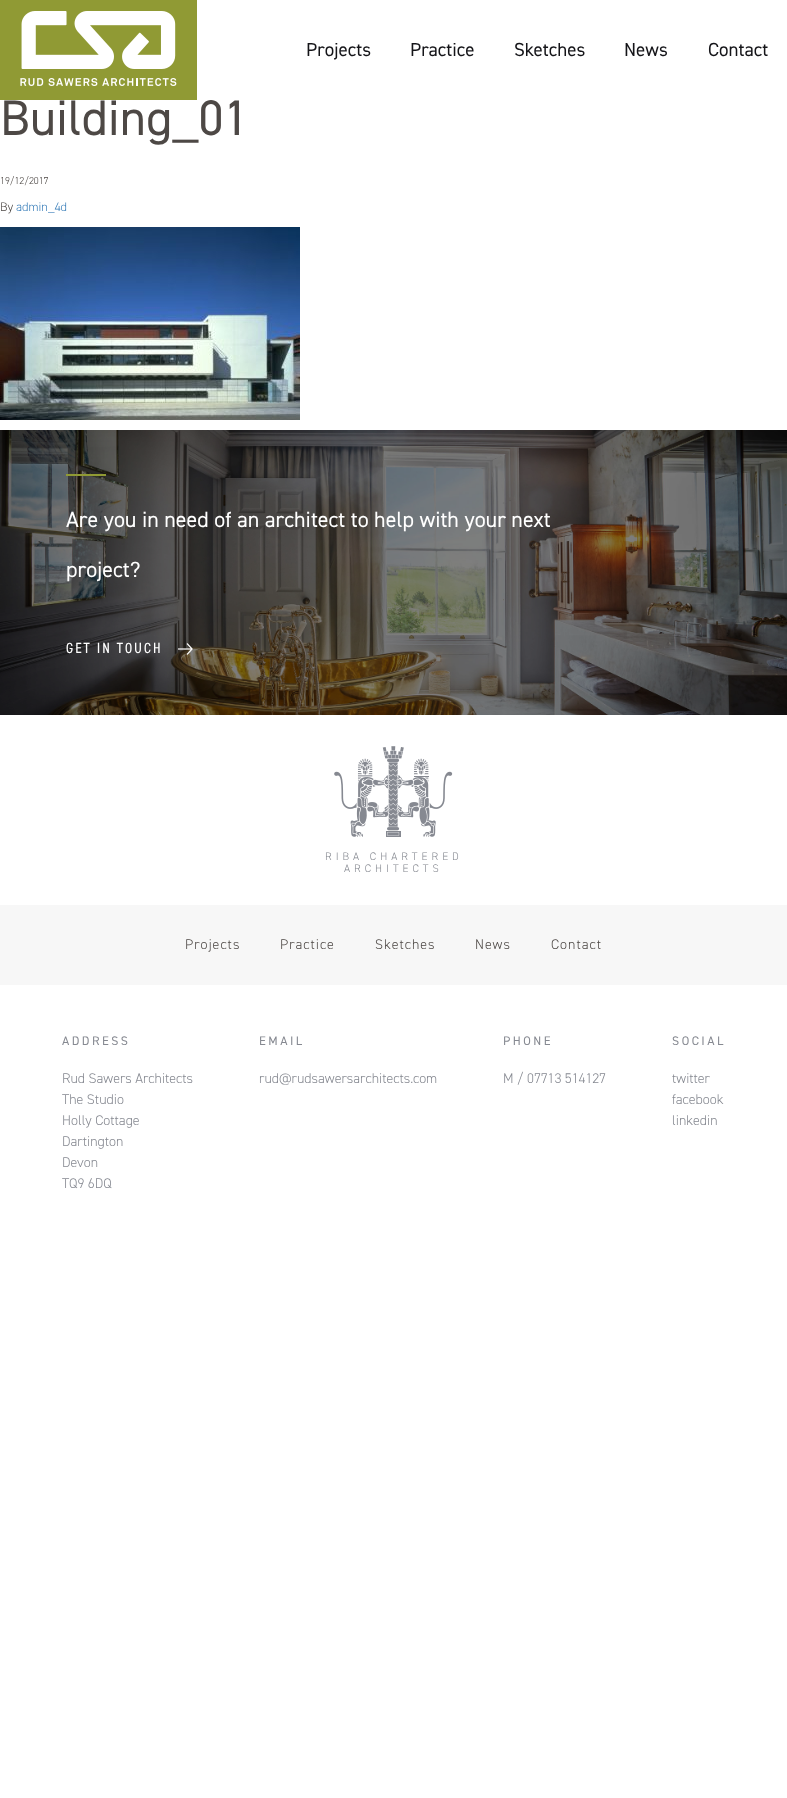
<svg xmlns="http://www.w3.org/2000/svg" width="787" height="1798" viewBox="0 0 787 1798">
  <style>
    .t1 { font: 19px 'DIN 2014'; fill: #151519; }
    .t2 { font: 50px 'DIN 2014'; fill: #4d4845; }
    .t3 { font: 300 10px 'DIN 2014'; fill: #4d4845; }
    .t4 { font: 300 12.5px 'DIN 2014'; fill: #4d4845; }
    .t5 { font: 300 12.5px 'DIN 2014'; fill: #337ab7; }
    .t6 { font: 22px 'DIN 2014'; fill: #fff; }
    .t7 { font: 14.75px 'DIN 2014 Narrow'; letter-spacing: 2px; fill: #fff; }
    .t8 { font: 300 11px 'DIN 2014'; letter-spacing: 4px; fill: #868991; }
    .t9 { font: 300 14px 'DIN 2014'; letter-spacing: 1px; fill: #4d4845; }
    .t10 { font: 12.5px 'DIN 2014'; letter-spacing: 2.5px; fill: #868991; }
    .t11 { font: 300 14px 'DIN 2014'; fill: #868991; }
  </style>
  <rect width="100%" height="100%" fill="#fff"/>
  <rect x="0" y="0" width="197" height="100" fill="#909a34"/>
  <image x="21" y="11" width="155" height="58" href="images/1.png"/>
  <image x="20" y="78" width="157" height="8" href="images/2.png"/>
  <text x="306" y="56" class="t1">Projects</text>
  <text x="410" y="56" class="t1">Practice</text>
  <text x="514" y="56" class="t1">Sketches</text>
  <text x="624" y="56" class="t1">News</text>
  <text x="708" y="56" class="t1">Contact</text>
  <text x="0" y="135" class="t2">Building_01</text>
  <text x="0" y="184" class="t3">19/12/2017</text>
  <text x="0" y="211" class="t4">By</text>
  <text x="16" y="211" class="t5">admin_4d</text>
  <image x="0" y="227" width="300" height="193" href="images/3.png"/>
  <image x="0" y="430" width="787" height="285" href="images/4.png"/>
  <rect x="66" y="474" width="40" height="2" fill="#909a34"/>
  <text x="66" y="527" class="t6">Are you in need of an architect to help with your next</text>
  <text x="66" y="577" class="t6">project?</text>
  <text x="66" y="653" class="t7">GET IN TOUCH</text>
  <image x="178" y="643" width="15" height="12" href="images/5.png"/>
  <image x="334" y="746" width="119" height="91" href="images/6.png"/>
  <text x="325" y="860" class="t8">RIBA CHARTERED</text>
  <text x="344" y="872" class="t8">ARCHITECTS</text>
  <rect x="0" y="905" width="787" height="80" fill="#f7f7f7"/>
  <text x="185" y="949" class="t9">Projects</text>
  <text x="280" y="949" class="t9">Practice</text>
  <text x="375" y="949" class="t9">Sketches</text>
  <text x="475" y="949" class="t9">News</text>
  <text x="551" y="949" class="t9">Contact</text>
  <text x="62" y="1045" class="t10">ADDRESS</text>
  <text x="62" y="1083" class="t11">Rud Sawers Architects</text>
  <text x="62" y="1104" class="t11">The Studio</text>
  <text x="62" y="1125" class="t11">Holly Cottage</text>
  <text x="62" y="1146" class="t11">Dartington</text>
  <text x="62" y="1167" class="t11">Devon</text>
  <text x="62" y="1188" class="t11">TQ9 6DQ</text>
  <text x="259" y="1045" class="t10">EMAIL</text>
  <text x="259" y="1083" class="t11">rud@rudsawersarchitects.com</text>
  <text x="503" y="1045" class="t10">PHONE</text>
  <text x="503" y="1083" class="t11">M / 07713 514127</text>
  <text x="672" y="1045" class="t10">SOCIAL</text>
  <text x="672" y="1083" class="t11">twitter</text>
  <text x="672" y="1104" class="t11">facebook</text>
  <text x="672" y="1125" class="t11">linkedin</text>
</svg>
